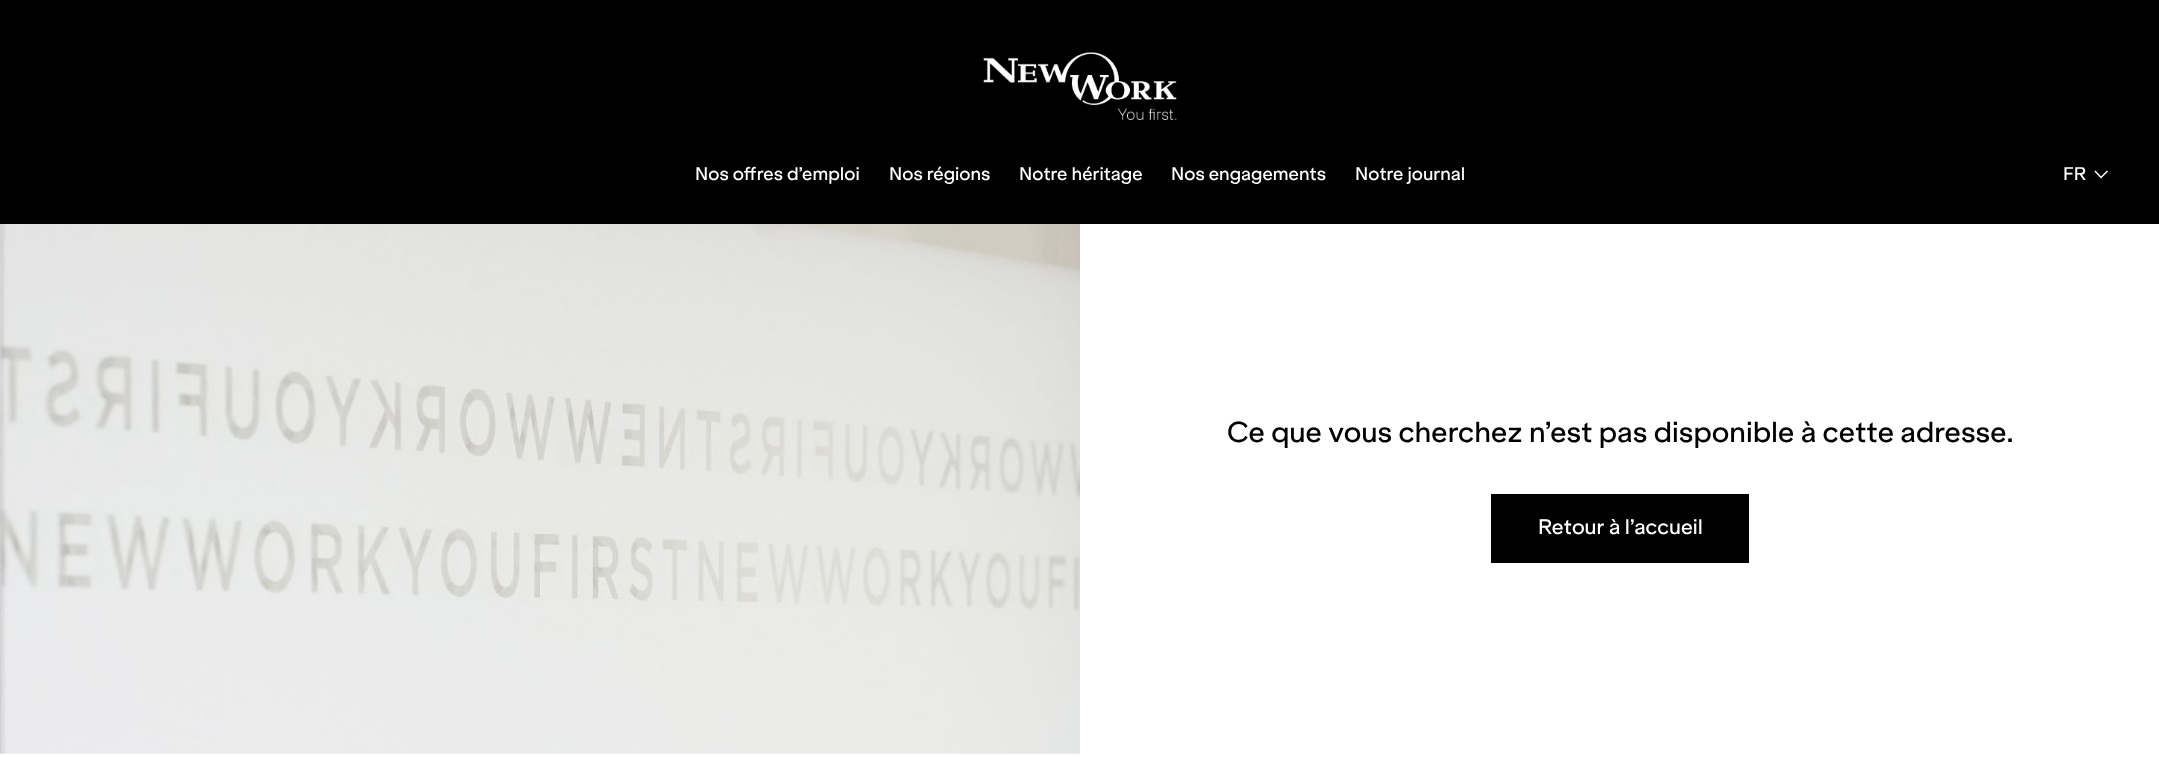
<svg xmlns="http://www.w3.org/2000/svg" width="2159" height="757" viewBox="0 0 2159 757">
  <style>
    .t1 { font: 500 17.5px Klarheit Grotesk; fill: #fff; }
    .t2 { font: 500 27.5px Klarheit Grotesk; fill: #000; }
    .t3 { font: 500 20px Klarheit Grotesk; fill: #fff; }
  </style>
  <rect width="100%" height="100%" fill="#fff"/>
  <rect x="0" y="0" width="2159" height="224" fill="#000"/>
  <image x="983" y="52" width="194" height="68" href="images/1.png"/>
  <text x="695" y="180" class="t1">Nos offres d’emploi</text>
  <text x="889" y="180" class="t1">Nos régions</text>
  <text x="1019" y="180" class="t1">Notre héritage</text>
  <text x="1171" y="180" class="t1">Nos engagements</text>
  <text x="1355" y="180" class="t1">Notre journal</text>
  <text x="2063" y="180" class="t1">FR</text>
  <path d="M2095 171L2101 177.5L2107.5 171" fill="none" stroke="#fff" stroke-width="1.5"/>
  <image x="0" y="224" width="1080" height="530" href="images/2.png"/>
  <text x="1227" y="442" class="t2">Ce que vous cherchez n’est pas disponible à cette adresse.</text>
  <rect x="1491" y="494" width="258" height="69" fill="#000"/>
  <text x="1538" y="534" class="t3">Retour à l’accueil</text>
</svg>
